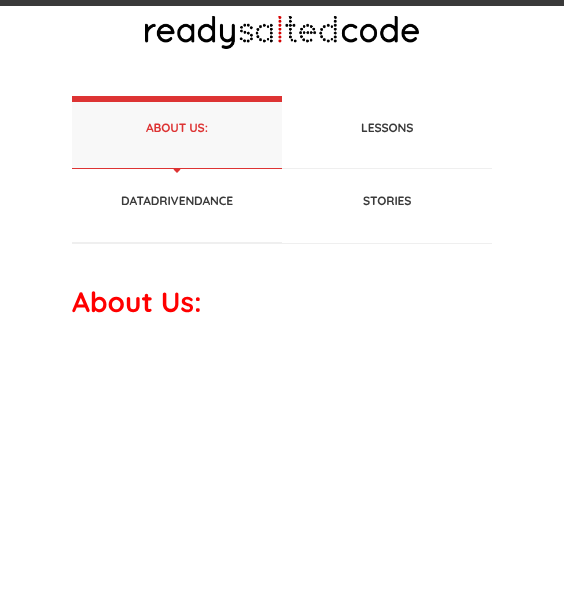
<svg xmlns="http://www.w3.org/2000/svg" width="564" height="591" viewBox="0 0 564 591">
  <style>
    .t1 { font: bold 12px Quicksand; letter-spacing: -0.1px; fill: #d33; }
    .t2 { font: bold 12px Quicksand; letter-spacing: -0.1px; fill: #3a3a3a; }
    .t3 { font: bold 28px Quicksand; fill: #f00; }
  </style>
  <rect width="100%" height="100%" fill="#fff"/>
  <rect x="0" y="0" width="564" height="6" fill="#3a3a3a"/>
  <rect x="72" y="243" width="420" height="1" fill="#efefef"/>
  <image x="145" y="16" width="274" height="33" href="images/1.png"/>
  <path d="M177 166L180.5 169.5L177 173L173.5 169.5Z" fill="#d33"/>
  <rect x="72" y="102" width="210" height="66" fill="#f8f8f8"/>
  <rect x="72" y="96" width="210" height="6" fill="#d33"/>
  <rect x="72" y="168" width="210" height="1" fill="#d33"/>
  <text x="146" y="132" class="t1">ABOUT US:</text>
  <rect x="282" y="168" width="210" height="1" fill="#efefef"/>
  <text x="361" y="132" class="t2">LESSONS</text>
  <rect x="72" y="242" width="210" height="1" fill="#efefef"/>
  <text x="121" y="205" class="t2">DATADRIVENDANCE</text>
  <text x="363" y="205" class="t2">STORIES</text>
  <text x="72" y="312" class="t3">About Us:</text>
</svg>
